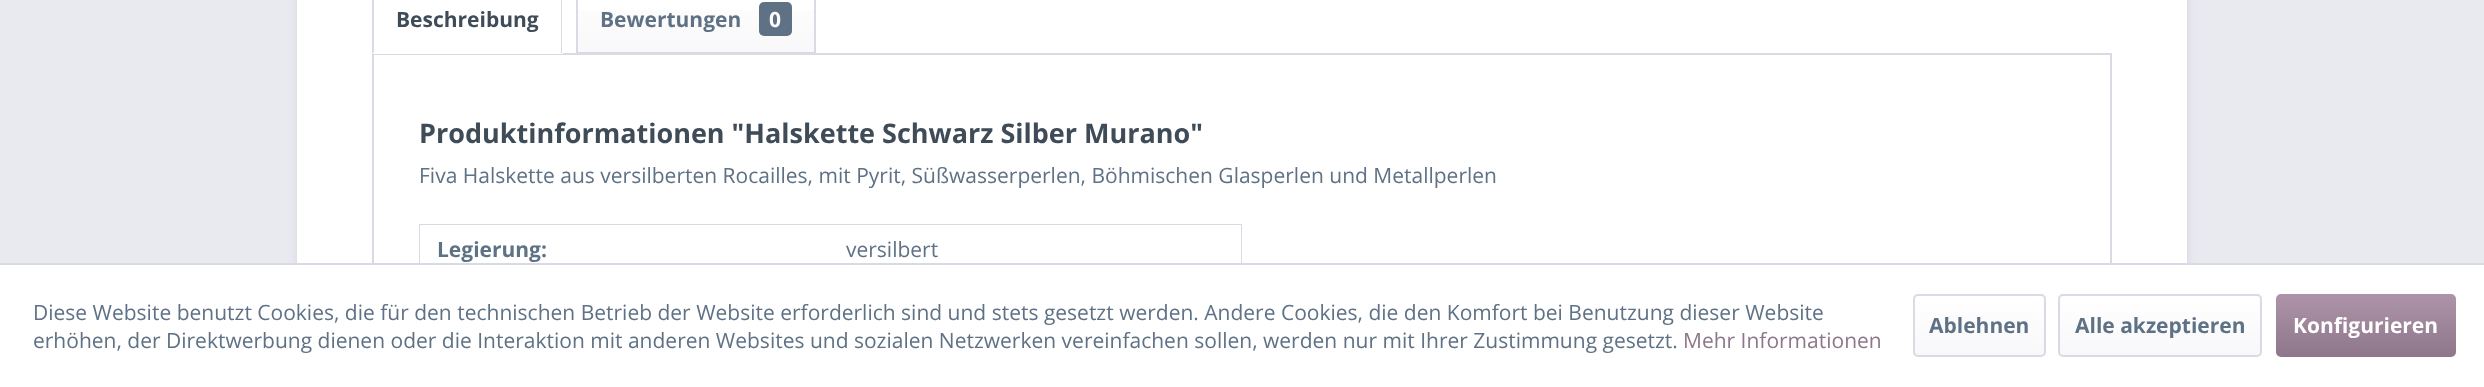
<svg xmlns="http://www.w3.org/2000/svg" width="2484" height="387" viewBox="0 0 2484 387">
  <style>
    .t1 { font: bold 21px Open Sans; fill: #3f4c58; }
    .t2 { font: bold 21px Open Sans; fill: #5f7285; }
    .t3 { font: bold 21px Open Sans; fill: #fff; }
    .t4 { font: bold 27px Open Sans; fill: #3f4c58; }
    .t5 { font: 21px Open Sans; fill: #5f7285; }
    .t6 { font: 21px Open Sans; fill: #8e778a; }
  </style>
  <defs>
    <linearGradient id="g1" gradientUnits="userSpaceOnUse" x1="696" y1="-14" x2="696" y2="53"><stop offset="0" stop-color="#fff"/><stop offset="1" stop-color="#f8f8fa"/></linearGradient>
    <linearGradient id="g2" gradientUnits="userSpaceOnUse" x1="1979" y1="296" x2="1979" y2="356"><stop offset="0" stop-color="#fff"/><stop offset="1" stop-color="#f8f8fa"/></linearGradient>
    <linearGradient id="g3" gradientUnits="userSpaceOnUse" x1="2160" y1="296" x2="2160" y2="356"><stop offset="0" stop-color="#fff"/><stop offset="1" stop-color="#f8f8fa"/></linearGradient>
    <linearGradient id="g4" gradientUnits="userSpaceOnUse" x1="2366" y1="294" x2="2366" y2="357"><stop offset="0" stop-color="#ae94aa"/><stop offset="1" stop-color="#8e778a"/></linearGradient>
  </defs>
  <rect width="100%" height="100%" fill="#e9e9f0"/>
  <rect x="296" y="-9" width="1893" height="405" fill="#dadae5" filter="blur(3px)"/>
  <rect x="297" y="0" width="1890" height="263" fill="#fff"/>
  <rect x="373" y="54" width="1738" height="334" fill="none" stroke="#dadae5" stroke-width="2"/>
  <rect x="372" y="53" width="191" height="1" fill="#fff"/>
  <path d="M561-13C562-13 562-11 562-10V54L560 52H561V-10L560-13Z" fill="#dadae5"/>
  <path d="M562 54L560 52H374L372 54Z" fill="#fff"/>
  <path d="M372 54L374 52V-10L375-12L373-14C373-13 372-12 372-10Z" fill="#dadae5"/>
  <text x="396" y="27" class="t1">Beschreibung</text>
  <rect x="578" y="10" width="236" height="42" fill="url(#g1)"/>
  <rect x="577" y="-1" width="238" height="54" fill="none" stroke="#dadae5" stroke-width="2"/>
  <text x="600" y="27" class="t2">Bewertungen</text>
  <rect x="759" y="2" width="33" height="34" rx="5" fill="#5f7285"/>
  <text x="769" y="27" class="t3">0</text>
  <text x="419" y="143" class="t4">Produktinformationen "Halskette Schwarz Silber Murano"</text>
  <text x="419" y="183" class="t5">Fiva Halskette aus versilberten Rocailles, mit Pyrit, Süßwasserperlen, Böhmischen Glasperlen und Metallperlen</text>
  <rect x="420" y="225" width="821" height="149" fill="none" stroke="#dadae5" stroke-width="2"/>
  <rect x="420" y="225" width="821" height="38" fill="#fff"/>
  <text x="437" y="257" class="t2">Legierung:</text>
  <text x="846" y="257" class="t5">versilbert</text>
  <rect x="0" y="265" width="2484" height="122" fill="#fff"/>
  <rect x="0" y="263" width="2484" height="2" fill="#dadae5"/>
  <text x="33" y="320" class="t5">Diese Website benutzt Cookies, die für den technischen Betrieb der Website erforderlich sind und stets gesetzt werden. Andere Cookies, die den Komfort bei Benutzung dieser Website</text>
  <text x="33" y="348" class="t5">erhöhen, der Direktwerbung dienen oder die Interaktion mit anderen Websites und sozialen Netzwerken vereinfachen sollen, werden nur mit Ihrer Zustimmung gesetzt.</text>
  <text x="1683" y="348" class="t6">Mehr Informationen</text>
  <rect x="1914" y="296" width="131" height="60" rx="3" fill="url(#g2)"/>
  <rect x="1914" y="295" width="131" height="61" rx="4" fill="none" stroke="#dadae5" stroke-width="2"/>
  <text x="1929" y="333" class="t2">Ablehnen</text>
  <rect x="2060" y="296" width="201" height="60" rx="3" fill="url(#g3)"/>
  <rect x="2059" y="295" width="202" height="61" rx="4" fill="none" stroke="#dadae5" stroke-width="2"/>
  <text x="2075" y="333" class="t2">Alle akzeptieren</text>
  <rect x="2276" y="294" width="180" height="63" rx="5" fill="url(#g4)"/>
  <text x="2293" y="333" class="t3">Konfigurieren</text>
</svg>
